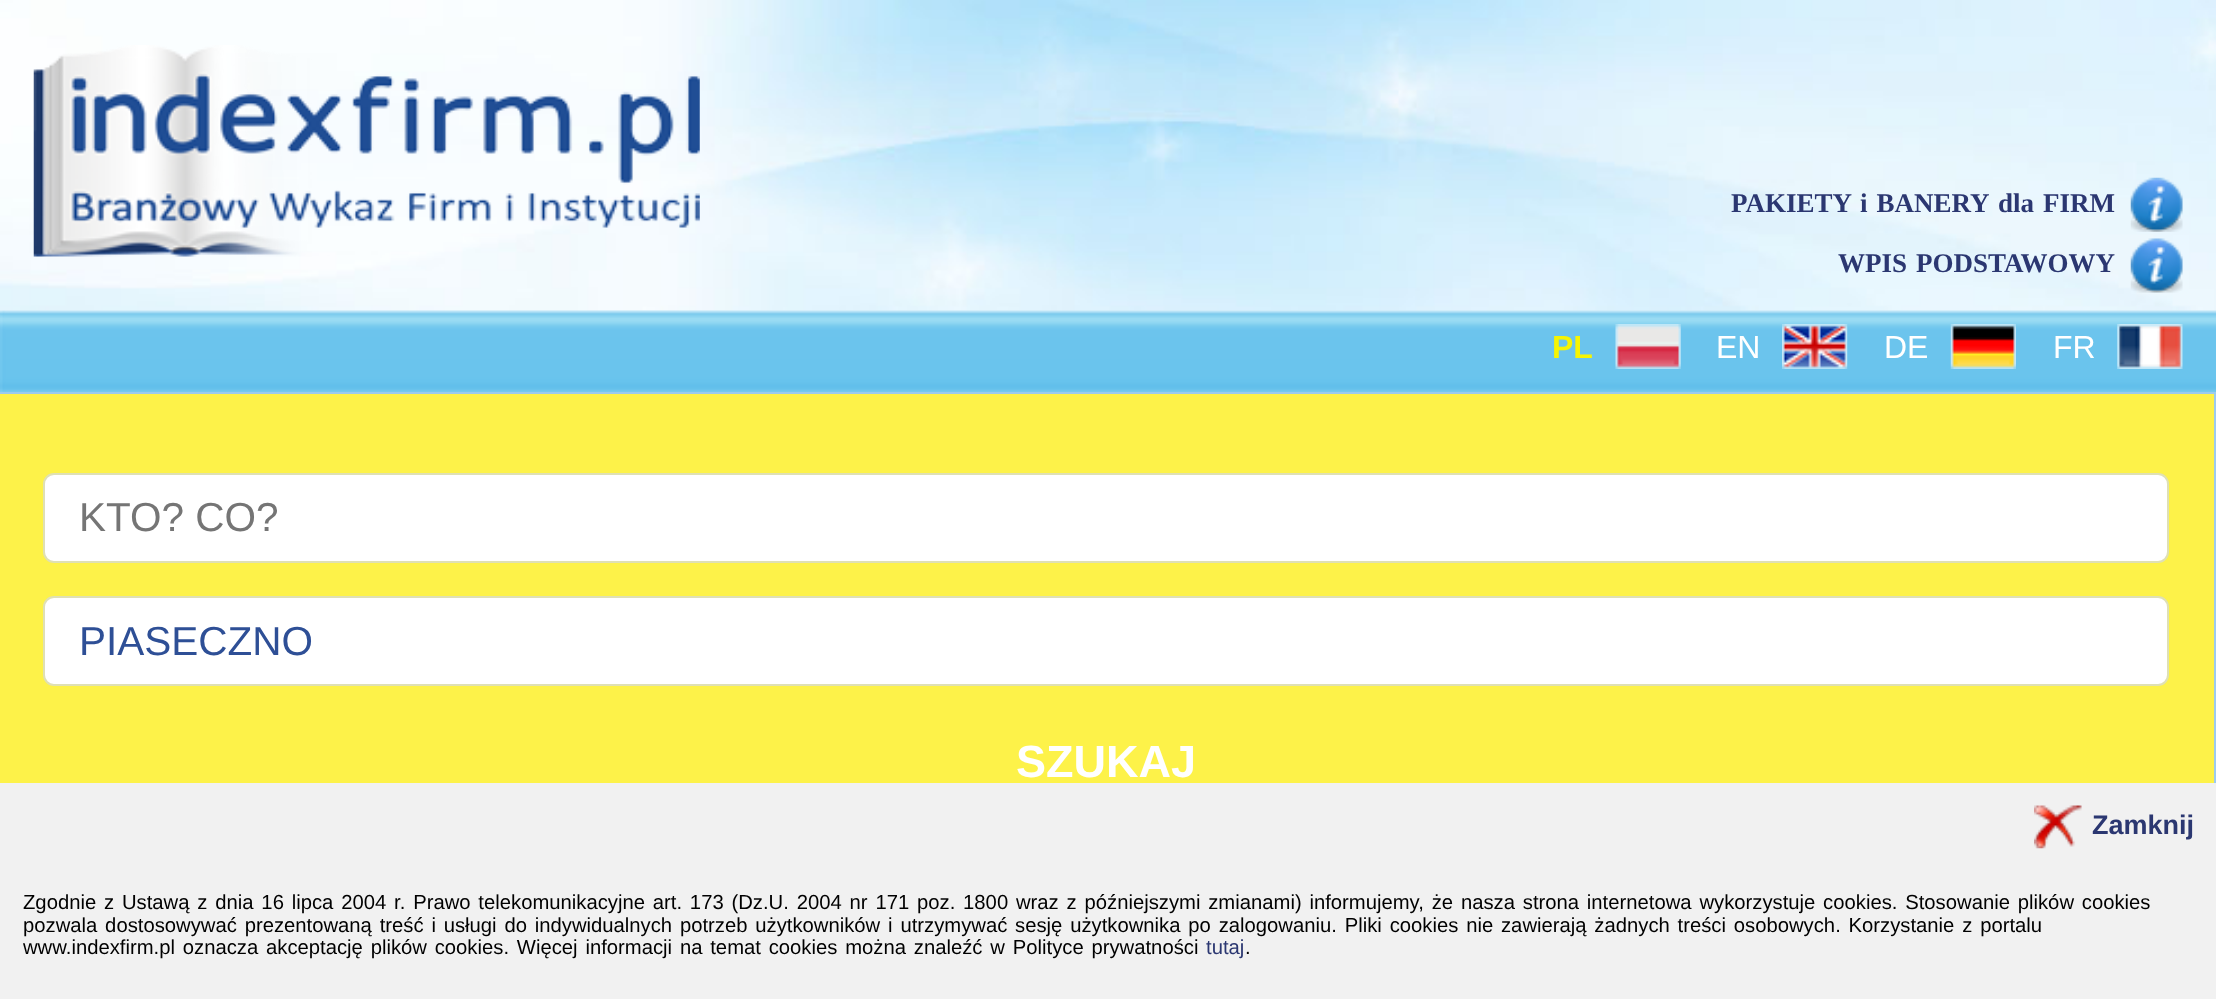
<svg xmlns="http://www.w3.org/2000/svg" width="2216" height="999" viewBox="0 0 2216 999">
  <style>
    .t1 { font: bold 27px Liberation Serif; fill: #2b3771; }
    .t2 { font: bold 32px Liberation Sans; fill: #f6f403; }
    .t3 { font: 32px Liberation Sans; fill: #fff; }
    .t4 { font: 40.5px Liberation Sans; fill: #757575; }
    .t5 { font: 40.5px Liberation Sans; fill: #2e4f96; }
    .t6 { font: bold 45px Liberation Sans; fill: #fff; }
    .t7 { font: bold 27px Liberation Sans; fill: #2b3771; }
    .t8 { font: 20.25px Liberation Sans; fill: #000; }
    .t9 { font: 20.25px Liberation Sans; fill: #2b3771; }
  </style>
  <rect width="100%" height="100%" fill="#fff"/>
  <image x="0" y="0" width="2216" height="311" href="images/1.png"/>
  <image x="33" y="45" width="667" height="212" href="images/2.png"/>
  <text x="1731" y="212" class="t1">PAKIETY</text>
  <text x="1860" y="212" word-spacing="2.2" class="t1">i BANERY</text>
  <text x="1998" y="212" word-spacing="2.2" class="t1">dla FIRM</text>
  <image x="2130" y="177" width="53" height="55" href="images/3.png"/>
  <text x="1838" y="272" word-spacing="2.2" class="t1">WPIS PODSTAWOWY</text>
  <image x="2130" y="238" width="53" height="55" href="images/4.png"/>
  <image x="0" y="310" width="2216" height="82" href="images/5.png"/>
  <text x="1552" y="358" class="t2">PL</text>
  <image x="1615" y="324" width="66" height="45" href="images/6.png"/>
  <text x="1716" y="358" class="t3">EN</text>
  <image x="1782" y="324" width="66" height="45" href="images/7.png"/>
  <text x="1884" y="358" class="t3">DE</text>
  <image x="1950" y="324" width="66" height="45" href="images/8.png"/>
  <text x="2053" y="358" class="t3">FR</text>
  <image x="2117" y="324" width="66" height="45" href="images/9.png"/>
  <rect x="0" y="394" width="2214" height="389" fill="#fdf249"/>
  <rect x="-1" y="393" width="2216" height="470" fill="none" stroke="#9ccbee" stroke-width="2"/>
  <rect x="44" y="474" width="2124" height="88" rx="10" fill="#fff" stroke="#dfe0b4" stroke-width="2"/>
  <text x="79" y="531" class="t4">KTO? CO?</text>
  <rect x="44" y="597" width="2124" height="88" rx="10" fill="#fff" stroke="#dfe0b4" stroke-width="2"/>
  <text x="79" y="655" class="t5">PIASECZNO</text>
  <text x="1016" y="777" class="t6">SZUKAJ</text>
  <rect x="0" y="783" width="2216" height="216" fill="#f1f1f1"/>
  <image x="2034" y="805" width="48" height="44" href="images/10.png"/>
  <text x="2092" y="834" class="t7">Zamknij</text>
  <text x="23" y="909" word-spacing="2.2" class="t8">Zgodnie z Ustawą z dnia 16 lipca 2004 r. Prawo telekomunikacyjne art. 173 (Dz.U. 2004 nr 171 poz. 1800 wraz z późniejszymi zmianami) informujemy, że nasza strona internetowa wykorzystuje cookies. Stosowanie plików cookies</text>
  <text x="23" y="932" word-spacing="2.2" class="t8">pozwala dostosowywać prezentowaną treść i usługi do indywidualnych potrzeb użytkowników i utrzymywać sesję użytkownika po zalogowaniu. Pliki cookies nie zawierają żadnych treści osobowych. Korzystanie z portalu</text>
  <text x="23" y="954" word-spacing="2.2" class="t8">www.indexfirm.pl oznacza akceptację plików cookies. Więcej informacji na temat cookies można znaleźć w Polityce prywatności</text>
  <text x="1206" y="954" class="t9">tutaj</text>
  <text x="1245" y="954" class="t8">.</text>
</svg>
